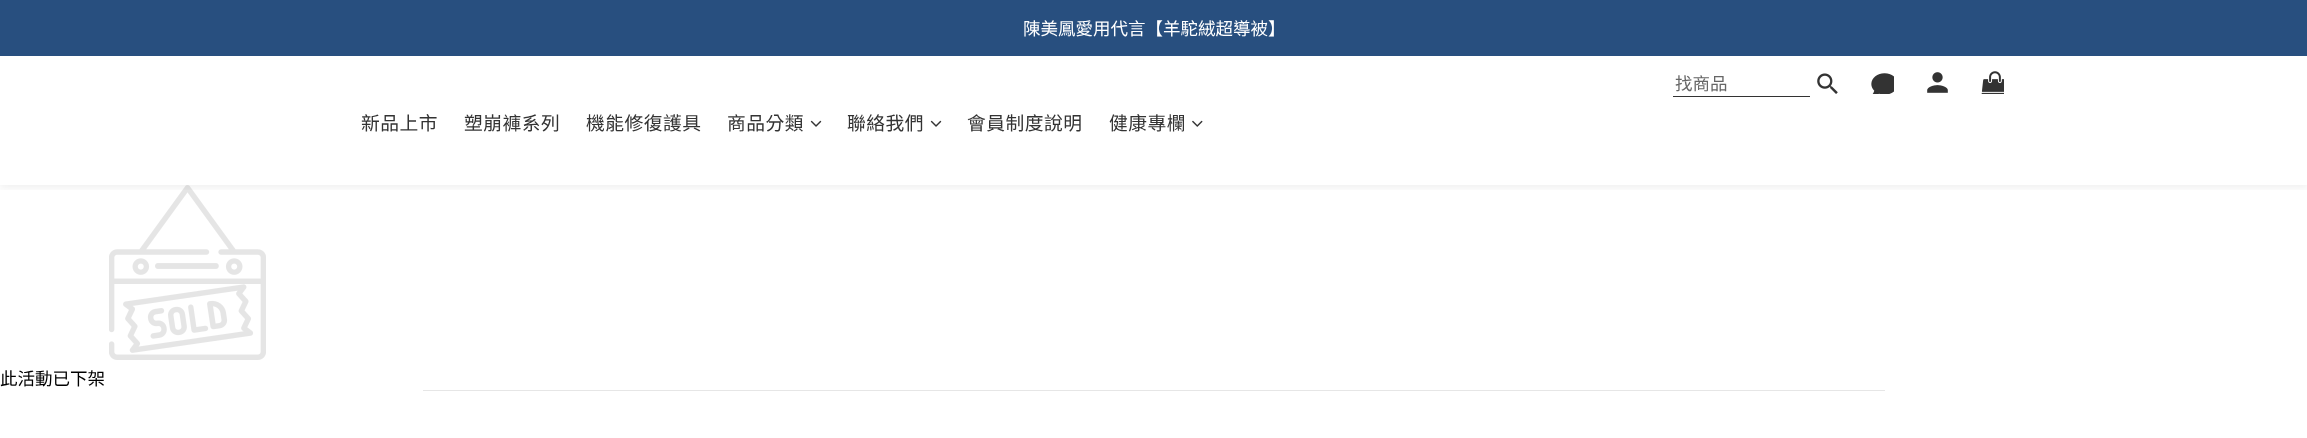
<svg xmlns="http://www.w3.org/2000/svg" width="2307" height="438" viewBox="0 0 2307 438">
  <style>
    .t1 { font: 17.5px Noto Sans TC; fill: #fff; }
    .t2 { font: 17.5px Noto Sans TC; fill: #666; }
    .t3 { font: 18.75px Noto Sans TC; letter-spacing: 0.5px; fill: #333; }
    .t4 { font: 17.5px Noto Sans TC; fill: #000; }
  </style>
  <defs>
    <clipPath id="clip1"><rect x="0" y="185" width="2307" height="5"/></clipPath>
  </defs>
  <rect width="100%" height="100%" fill="#fff"/>
  <rect x="0" y="0" width="2307" height="56" fill="#284f7f"/>
  <text x="1023" y="35" class="t1">陳美鳳愛用代言【羊駝絨超導被】</text>
  <image x="109" y="185" width="157" height="175" href="images/7.png"/>
  <g clip-path="url(#clip1)">
    <rect x="0" y="59" width="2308" height="129" fill="#0000000f" filter="blur(4px)"/>
  </g>
  <rect x="1673" y="96" width="137" height="1" fill="#333"/>
  <text x="1675" y="90" class="t2">找商品</text>
  <image x="1817" y="73" width="21" height="21" href="images/1.png"/>
  <image x="1871" y="73" width="23" height="21" href="images/2.png"/>
  <image x="1927" y="72" width="21" height="21" href="images/3.png"/>
  <image x="1981" y="71" width="23" height="23" href="images/4.png"/>
  <text x="361" y="130" class="t3">新品上市</text>
  <text x="464" y="130" class="t3">塑崩褲系列</text>
  <text x="586" y="130" class="t3">機能修復護具</text>
  <text x="727" y="130" class="t3">商品分類</text>
  <image x="810" y="120" width="12" height="7" href="images/5.png"/>
  <text x="847" y="130" class="t3">聯絡我們</text>
  <image x="930" y="120" width="12" height="7" href="images/5.png"/>
  <text x="967" y="130" class="t3">會員制度說明</text>
  <text x="1109" y="130" class="t3">健康專欄</text>
  <image x="1192" y="120" width="11" height="7" href="images/6.png"/>
  <text x="0" y="385" class="t4">此活動已下架</text>
  <rect x="423" y="390" width="1462" height="1" fill="#e6e6e6"/>
</svg>
